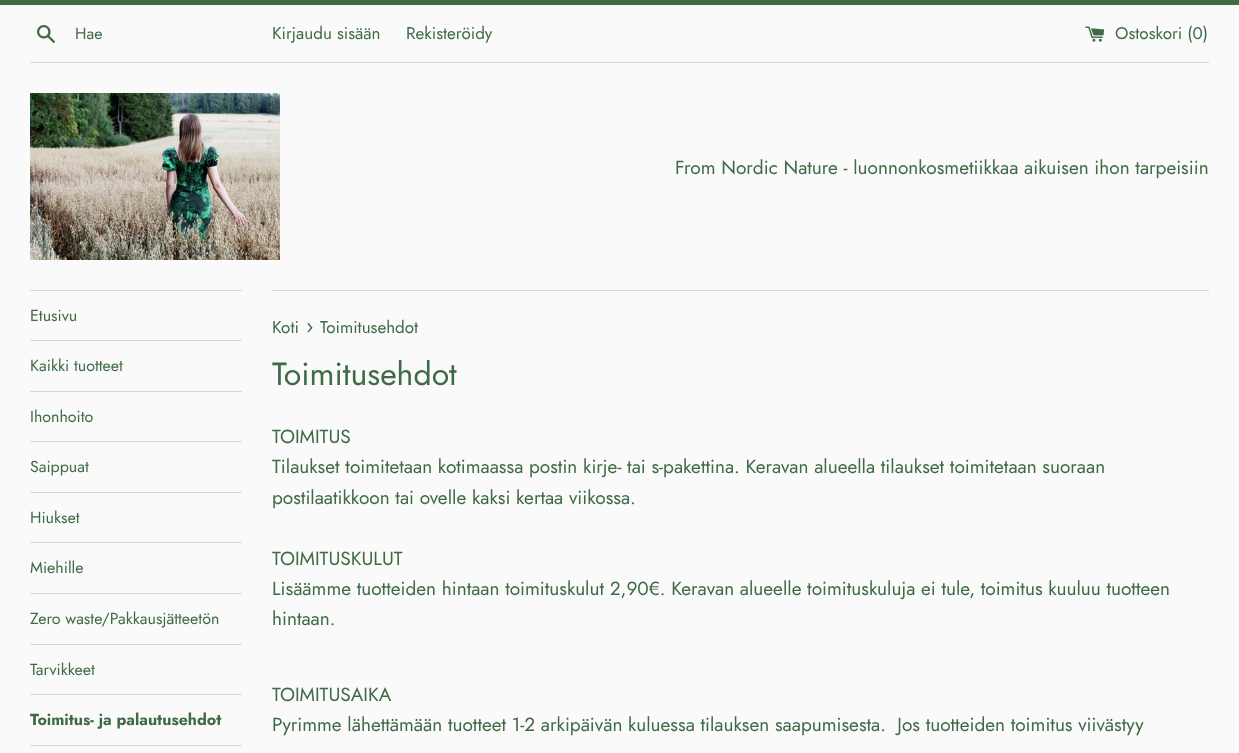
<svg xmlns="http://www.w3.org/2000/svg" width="1239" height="753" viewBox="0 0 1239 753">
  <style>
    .t1 { font: 16px Jost; fill: #3f6a46; }
    .t2 { font: 17px Jost; fill: #3f6a46; }
    .t3 { font: 19px Jost; fill: #3f6a46; }
    .t4 { font: bold 16px Jost; fill: #3f6a46; }
    .t5 { font: 21px Jost; fill: #3f6a46; }
    .t6 { font: 32px Jost; fill: #3f6a46; }
  </style>
  <rect width="100%" height="100%" fill="#fafafa"/>
  <rect x="0" y="0" width="1239" height="5" fill="#3f6a46"/>
  <image x="37" y="25" width="18" height="18" href="images/1.png"/>
  <text x="75" y="39" class="t1">Hae</text>
  <text x="272" y="39" class="t2">Kirjaudu sisään</text>
  <text x="406" y="39" class="t2">Rekisteröidy</text>
  <image x="1085" y="26" width="20" height="16" href="images/2.png"/>
  <text x="1115" y="39" class="t2">Ostoskori (0)</text>
  <rect x="30" y="62" width="1179" height="1" fill="#d7d8d2"/>
  <image x="30" y="93" width="250" height="167" href="images/3.png"/>
  <text x="675" y="174" class="t3">From Nordic Nature - luonnonkosmetiikkaa aikuisen ihon tarpeisiin</text>
  <rect x="30" y="290" width="212" height="1" fill="#d7d8d2"/>
  <rect x="30" y="340" width="212" height="1" fill="#d7d8d2"/>
  <text x="30" y="321" class="t1">Etusivu</text>
  <rect x="30" y="391" width="212" height="1" fill="#d7d8d2"/>
  <text x="30" y="371" class="t1">Kaikki tuotteet</text>
  <rect x="30" y="441" width="212" height="1" fill="#d7d8d2"/>
  <text x="30" y="422" class="t1">Ihonhoito</text>
  <rect x="30" y="492" width="212" height="1" fill="#d7d8d2"/>
  <text x="30" y="472" class="t1">Saippuat</text>
  <rect x="30" y="542" width="212" height="1" fill="#d7d8d2"/>
  <text x="30" y="523" class="t1">Hiukset</text>
  <rect x="30" y="593" width="212" height="1" fill="#d7d8d2"/>
  <text x="30" y="573" class="t1">Miehille</text>
  <rect x="30" y="644" width="212" height="1" fill="#d7d8d2"/>
  <text x="30" y="624" class="t1">Zero waste/Pakkausjätteetön</text>
  <rect x="30" y="694" width="212" height="1" fill="#d7d8d2"/>
  <text x="30" y="675" class="t1">Tarvikkeet</text>
  <rect x="30" y="745" width="212" height="1" fill="#d7d8d2"/>
  <text x="30" y="725" class="t4">Toimitus- ja palautusehdot</text>
  <rect x="272" y="290" width="937" height="1" fill="#d7d8d2"/>
  <text x="272" y="333" class="t2">Koti</text>
  <text x="306" y="333" class="t5">›</text>
  <text x="320" y="333" class="t2">Toimitusehdot</text>
  <text x="272" y="385" class="t6">Toimitusehdot</text>
  <text x="272" y="443" class="t3">TOIMITUS</text>
  <text x="272" y="473" class="t3">Tilaukset toimitetaan kotimaassa postin kirje- tai s-pakettina. Keravan alueella tilaukset toimitetaan suoraan</text>
  <text x="272" y="504" class="t3">postilaatikkoon tai ovelle kaksi kertaa viikossa.</text>
  <text x="272" y="565" class="t3">TOIMITUSKULUT</text>
  <text x="272" y="595" class="t3">Lisäämme tuotteiden hintaan toimituskulut 2,90€. Keravan alueelle toimituskuluja ei tule, toimitus kuuluu tuotteen</text>
  <text x="272" y="625" class="t3">hintaan.</text>
  <text x="272" y="701" class="t3">TOIMITUSAIKA</text>
  <text x="272" y="731" class="t3" xml:space="preserve">Pyrimme lähettämään tuotteet 1-2 arkipäivän kuluessa tilauksen saapumisesta.  Jos tuotteiden toimitus viivästyy</text>
</svg>
